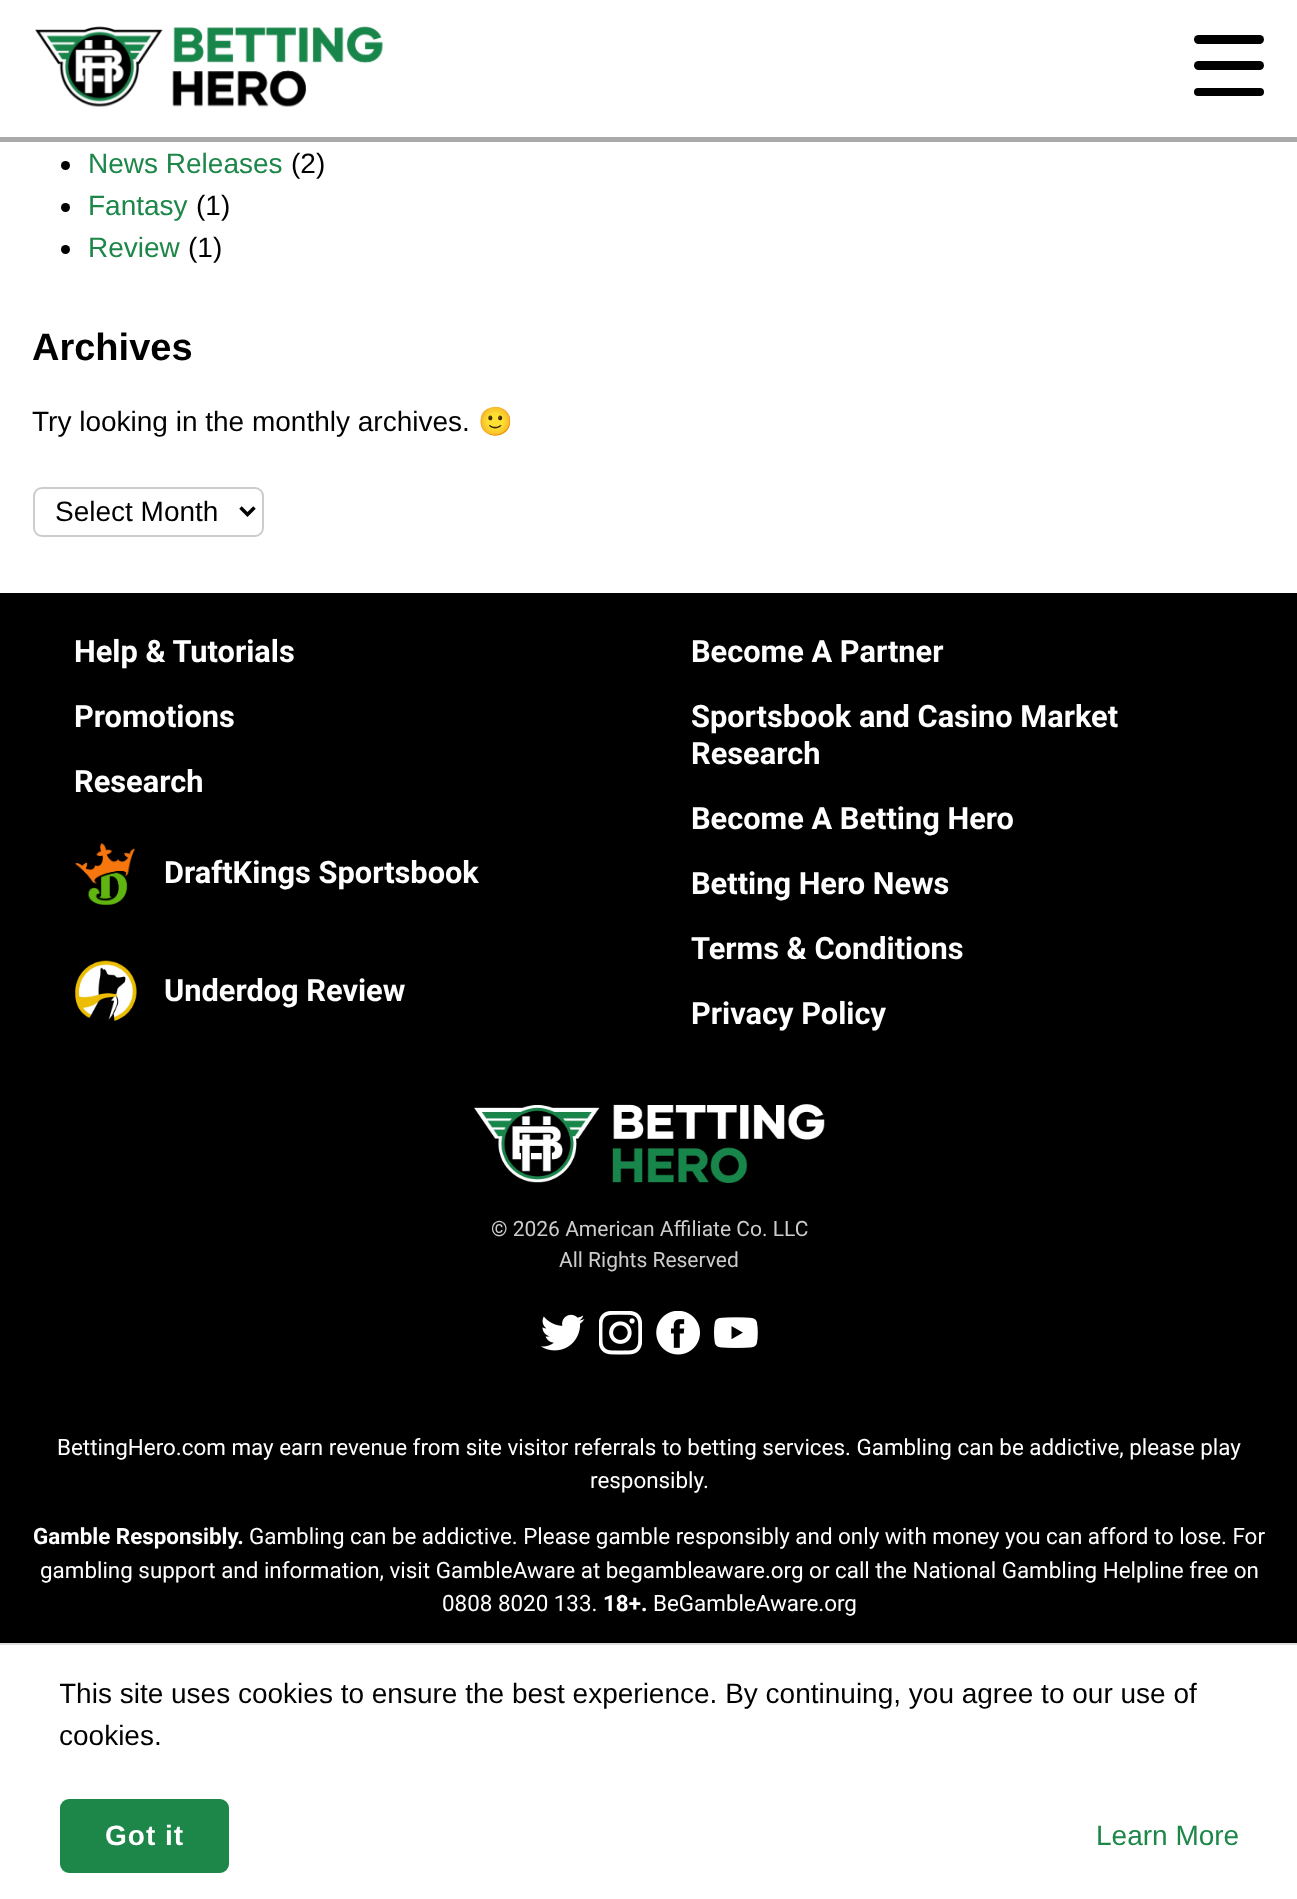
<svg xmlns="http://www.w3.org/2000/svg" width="1297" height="1899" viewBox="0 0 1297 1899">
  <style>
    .t1 { font: 28px Liberation Sans; fill: #1d8649; }
    .t2 { font: 28px Liberation Sans; fill: #000; }
    .t3 { font: bold 38px Liberation Sans; fill: #000; }
    .t4 { font: 28px Noto Color Emoji; fill: #000; }
    .t5 { font: bold 30.75px Roboto; fill: #fff; }
    .t6 { font: 21px Roboto; fill: #ccc; }
    .t7 { font: 22.4px Roboto; fill: #fff; }
    .t8 { font: bold 22.4px Roboto; fill: #fff; }
    .t9 { font: bold 28px Liberation Sans; letter-spacing: 1px; fill: #fff; }
  </style>
  <defs>
    <clipPath id="clip1"><rect x="60" y="1673" width="1179" height="200"/></clipPath>
  </defs>
  <rect width="100%" height="100%" fill="#fff"/>
  <rect x="0" y="137" width="1297" height="5" fill="#aaa"/>
  <image x="35" y="26" width="348" height="81" href="images/1.png"/>
  <rect x="1194" y="35" width="70" height="9" rx="4.5" fill="#000"/>
  <rect x="1194" y="61" width="70" height="9" rx="4.5" fill="#000"/>
  <rect x="1194" y="88" width="70" height="8" rx="4" fill="#000"/>
  <circle cx="65.5" cy="165.5" r="4.5" fill="#000"/>
  <text x="88" y="173" class="t1">News Releases</text>
  <text x="291" y="173" class="t2">(2)</text>
  <circle cx="65.5" cy="207.5" r="4.5" fill="#000"/>
  <text x="88" y="215" class="t1">Fantasy</text>
  <text x="196" y="215" class="t2">(1)</text>
  <circle cx="65.5" cy="249.5" r="4.5" fill="#000"/>
  <text x="88" y="257" class="t1">Review</text>
  <text x="188" y="257" class="t2">(1)</text>
  <text x="32" y="360" class="t3">Archives</text>
  <text x="32" y="431" class="t2">Try looking in the monthly archives.</text>
  <text x="478" y="431" class="t4">🙂</text>
  <rect x="34" y="488" width="229" height="48" rx="8" fill="none" stroke="#ccc" stroke-width="2"/>
  <path d="M240.5 507.5L247.5 514.5L254.5 507.5" fill="none" stroke="#000" stroke-width="3.5"/>
  <text x="55" y="521" class="t2">Select Month</text>
  <rect x="0" y="593" width="1297" height="1050" fill="#000"/>
  <text x="74" y="662" class="t5">Help &amp; Tutorials</text>
  <text x="74" y="727" class="t5">Promotions</text>
  <text x="74" y="792" class="t5">Research</text>
  <text x="691" y="662" class="t5">Become A Partner</text>
  <text x="691" y="727" class="t5">Sportsbook and Casino Market</text>
  <text x="691" y="764" class="t5">Research</text>
  <text x="691" y="829" class="t5">Become A Betting Hero</text>
  <text x="691" y="894" class="t5">Betting Hero News</text>
  <text x="691" y="959" class="t5">Terms &amp; Conditions</text>
  <text x="691" y="1024" class="t5">Privacy Policy</text>
  <image x="75" y="843" width="60" height="62" href="images/2.png"/>
  <text x="164" y="883" class="t5">DraftKings Sportsbook</text>
  <image x="75" y="960" width="62" height="62" href="images/3.png"/>
  <text x="164" y="1001" class="t5">Underdog Review</text>
  <image x="474" y="1104" width="351" height="79" href="images/4.png"/>
  <text x="491" y="1236" class="t6">© 2026 American Affiliate Co. LLC</text>
  <text x="559" y="1267" class="t6">All Rights Reserved</text>
  <image x="541" y="1314" width="44" height="37" href="images/5.png"/>
  <image x="599" y="1311" width="43" height="44" href="images/6.png"/>
  <image x="656" y="1311" width="44" height="44" href="images/7.png"/>
  <image x="714" y="1317" width="44" height="31" href="images/8.png"/>
  <text x="57" y="1455" class="t7">BettingHero.com may earn revenue from site visitor referrals to betting services. Gambling can be addictive, please play</text>
  <text x="590" y="1488" class="t7">responsibly.</text>
  <text x="33" y="1544" class="t8">Gamble Responsibly.</text>
  <text x="249" y="1544" class="t7">Gambling can be addictive. Please gamble responsibly and only with money you can afford to lose. For</text>
  <text x="40" y="1578" class="t7">gambling support and information, visit GambleAware at begambleaware.org or call the National Gambling Helpline free on</text>
  <text x="442" y="1611" class="t7">0808 8020 133.</text>
  <text x="603" y="1611" class="t8">18+.</text>
  <text x="653" y="1611" class="t7">BeGambleAware.org</text>
  <rect x="0" y="1643" width="1297" height="2" fill="#ddd"/>
  <g clip-path="url(#clip1)">
    <text x="59" y="1703" class="t2">This site uses cookies to ensure the best experience. By continuing, you agree to our use of</text>
  </g>
  <text x="59" y="1745" class="t2">cookies.</text>
  <rect x="61" y="1800" width="167" height="72" rx="8" fill="#1d8649" stroke="#1d8649" stroke-width="2"/>
  <text x="105" y="1845" class="t9">Got it</text>
  <text x="1096" y="1845" class="t1">Learn More</text>
</svg>
